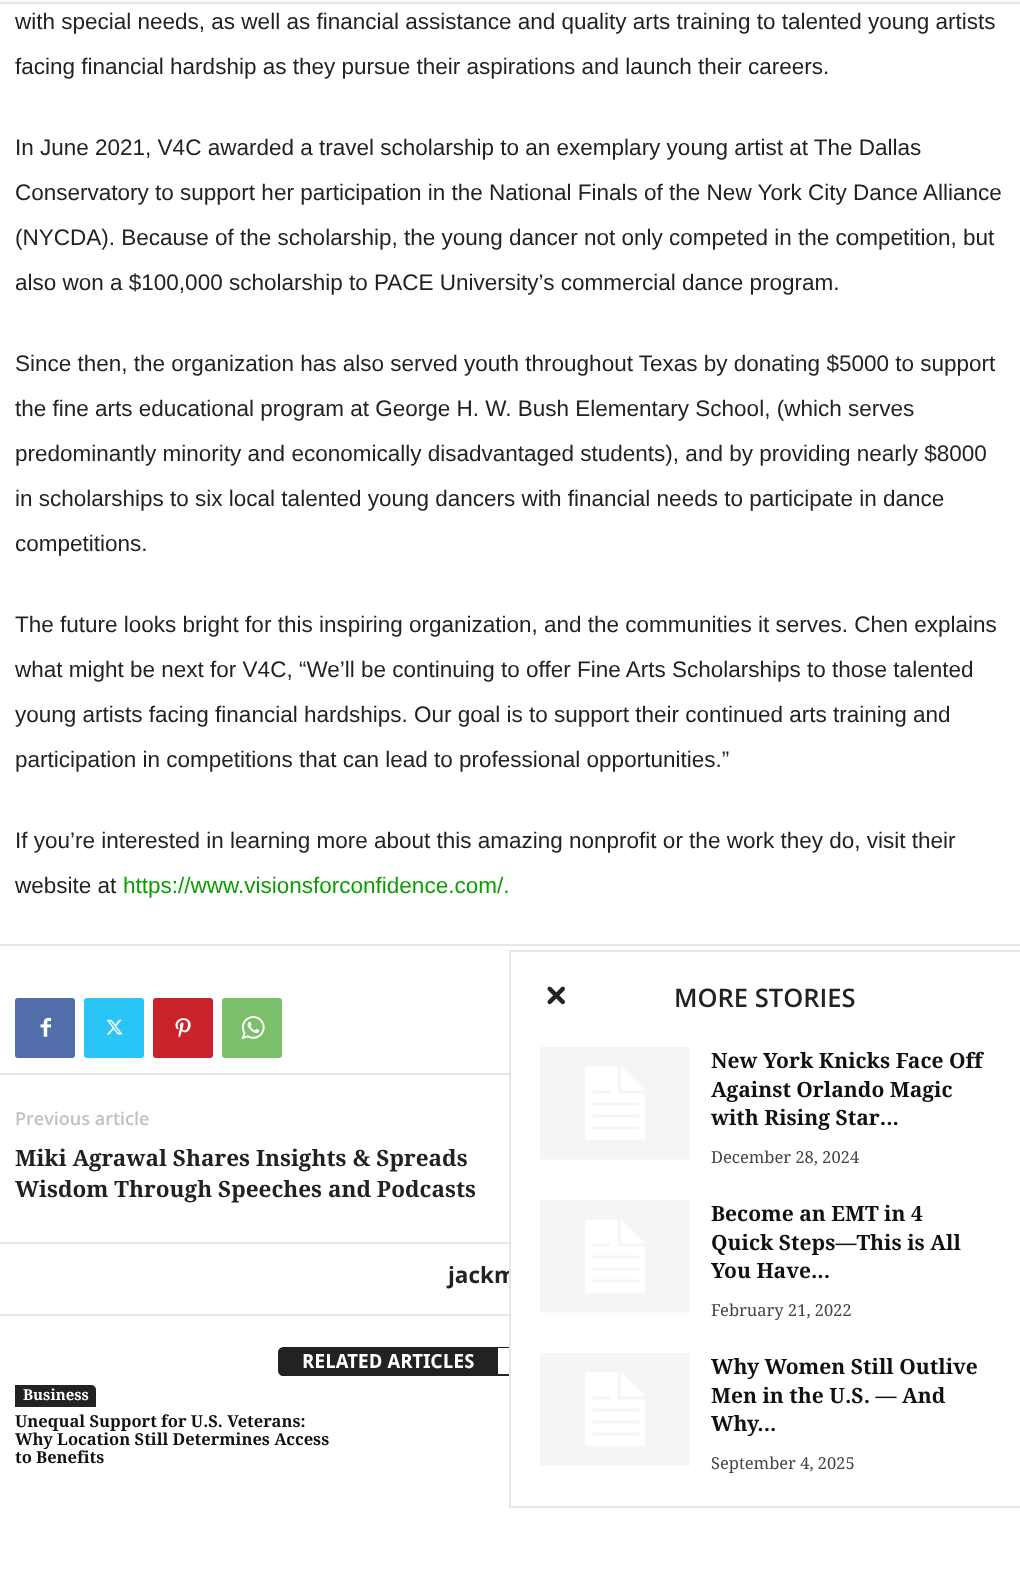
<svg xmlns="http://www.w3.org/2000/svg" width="1020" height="1579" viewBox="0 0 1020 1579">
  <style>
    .t1 { font: 22.5px Arimo; fill: #222; }
    .t2 { font: 22.5px Arimo; fill: #0a9e01; }
    .t3 { font: 600 18px Open Sans; fill: #c1c1c1; }
    .t4 { font: bold 22.5px Droid Serif; fill: #222; }
    .t5 { font: bold 22.5px Open Sans; fill: #222; }
    .t6 { font: bold 19.5px Droid Sans; fill: #fff; }
    .t7 { font: bold 15px Droid Serif; fill: #fff; }
    .t8 { font: bold 16.5px Droid Serif; fill: #111; }
    .t9 { font: 600 25.5px Open Sans; fill: #222; }
    .t10 { font: bold 21px Droid Serif; fill: #111; }
    .t11 { font: 16.5px Droid Serif; fill: #444; }
  </style>
  <rect width="100%" height="100%" fill="#fff"/>
  <rect x="0" y="0" width="1020" height="2" fill="#fcfcfc"/>
  <rect x="0" y="2" width="1020" height="2" fill="#e6e6e6"/>
  <text x="15" y="29" class="t1">with special needs, as well as financial assistance and quality arts training to talented young artists</text>
  <text x="15" y="74" class="t1">facing financial hardship as they pursue their aspirations and launch their careers.</text>
  <text x="15" y="155" class="t1">In June 2021, V4C awarded a travel scholarship to an exemplary young artist at The Dallas</text>
  <text x="15" y="200" class="t1">Conservatory to support her participation in the National Finals of the New York City Dance Alliance</text>
  <text x="15" y="245" class="t1">(NYCDA). Because of the scholarship, the young dancer not only competed in the competition, but</text>
  <text x="15" y="290" class="t1">also won a $100,000 scholarship to PACE University’s commercial dance program.</text>
  <text x="15" y="371" class="t1">Since then, the organization has also served youth throughout Texas by donating $5000 to support</text>
  <text x="15" y="416" class="t1">the fine arts educational program at George H. W. Bush Elementary School, (which serves</text>
  <text x="15" y="461" class="t1">predominantly minority and economically disadvantaged students), and by providing nearly $8000</text>
  <text x="15" y="506" class="t1">in scholarships to six local talented young dancers with financial needs to participate in dance</text>
  <text x="15" y="551" class="t1">competitions.</text>
  <text x="15" y="632" class="t1">The future looks bright for this inspiring organization, and the communities it serves. Chen explains</text>
  <text x="15" y="677" class="t1">what might be next for V4C, “We’ll be continuing to offer Fine Arts Scholarships to those talented</text>
  <text x="15" y="722" class="t1">young artists facing financial hardships. Our goal is to support their continued arts training and</text>
  <text x="15" y="767" class="t1">participation in competitions that can lead to professional opportunities.”</text>
  <text x="15" y="848" class="t1">If you’re interested in learning more about this amazing nonprofit or the work they do, visit their</text>
  <text x="15" y="893" class="t1">website at</text>
  <text x="123" y="893" class="t2">https://www.visionsforconfidence.com/.</text>
  <rect x="0" y="944" width="1020" height="2" fill="#e6e6e6"/>
  <rect x="15" y="998" width="60" height="60" rx="3" fill="#516eab"/>
  <image x="40" y="1017" width="11" height="20" href="images/1.png"/>
  <rect x="84" y="998" width="60" height="60" rx="3" fill="#29c5f6"/>
  <image x="106" y="1019" width="17" height="16" href="images/2.png"/>
  <rect x="153" y="998" width="60" height="60" rx="3" fill="#ca212a"/>
  <image x="175" y="1018" width="16" height="20" href="images/3.png"/>
  <rect x="222" y="998" width="60" height="60" rx="3" fill="#7bbf6a"/>
  <image x="241" y="1016" width="24" height="24" href="images/4.png"/>
  <rect x="0" y="1073" width="509" height="2" fill="#e6e6e6"/>
  <text x="15" y="1125" class="t3">Previous article</text>
  <text x="15" y="1166" class="t4">Miki Agrawal Shares Insights &amp; Spreads</text>
  <text x="15" y="1197" class="t4">Wisdom Through Speeches and Podcasts</text>
  <rect x="0" y="1242" width="509" height="2" fill="#e6e6e6"/>
  <text x="448" y="1283" class="t5">jackm</text>
  <rect x="0" y="1314" width="509" height="2" fill="#e6e6e6"/>
  <path d="M283 1348H497V1375H283C281 1375 279 1373 279 1371V1352C279 1350 281 1348 283 1348Z" fill="#222" stroke="#222" stroke-width="2"/>
  <text x="302" y="1368" class="t6">RELATED ARTICLES</text>
  <path d="M498 1347H738C740 1347 742 1349 742 1352V1371C742 1373 740 1376 738 1376H498ZM498 1348H738C740 1348 741 1350 741 1352V1371C741 1373 740 1374 738 1374H498Z" fill="#222" fill-rule="evenodd"/>
  <path d="M15 1385H91C94 1385 96 1387 96 1390V1407H15Z" fill="#222"/>
  <text x="23" y="1400" class="t7">Business</text>
  <text x="15" y="1427" class="t8">Unequal Support for U.S. Veterans:</text>
  <text x="15" y="1445" class="t8">Why Location Still Determines Access</text>
  <text x="15" y="1463" class="t8">to Benefits</text>
  <rect x="511" y="1270" width="231" height="106" fill="#fff"/>
  <rect x="509" y="950" width="511" height="2" fill="#e6e6e6"/>
  <rect x="509" y="1506" width="511" height="2" fill="#e6e6e6"/>
  <rect x="509" y="950" width="2" height="558" fill="#e6e6e6"/>
  <image x="547" y="986" width="18" height="19" href="images/5.png"/>
  <text x="674" y="1007" class="t9">MORE STORIES</text>
  <image x="540" y="1047" width="150" height="113" href="images/6.png"/>
  <text x="711" y="1068" class="t10">New York Knicks Face Off</text>
  <text x="711" y="1097" class="t10">Against Orlando Magic</text>
  <text x="711" y="1125" class="t10">with Rising Star...</text>
  <text x="711" y="1163" class="t11">December 28, 2024</text>
  <image x="540" y="1200" width="150" height="113" href="images/6.png"/>
  <text x="711" y="1221" class="t10">Become an EMT in 4</text>
  <text x="711" y="1250" class="t10">Quick Steps—This is All</text>
  <text x="711" y="1278" class="t10">You Have...</text>
  <text x="711" y="1316" class="t11">February 21, 2022</text>
  <image x="540" y="1353" width="150" height="113" href="images/6.png"/>
  <text x="711" y="1374" class="t10">Why Women Still Outlive</text>
  <text x="711" y="1403" class="t10">Men in the U.S. — And</text>
  <text x="711" y="1431" class="t10">Why...</text>
  <text x="711" y="1469" class="t11">September 4, 2025</text>
</svg>
